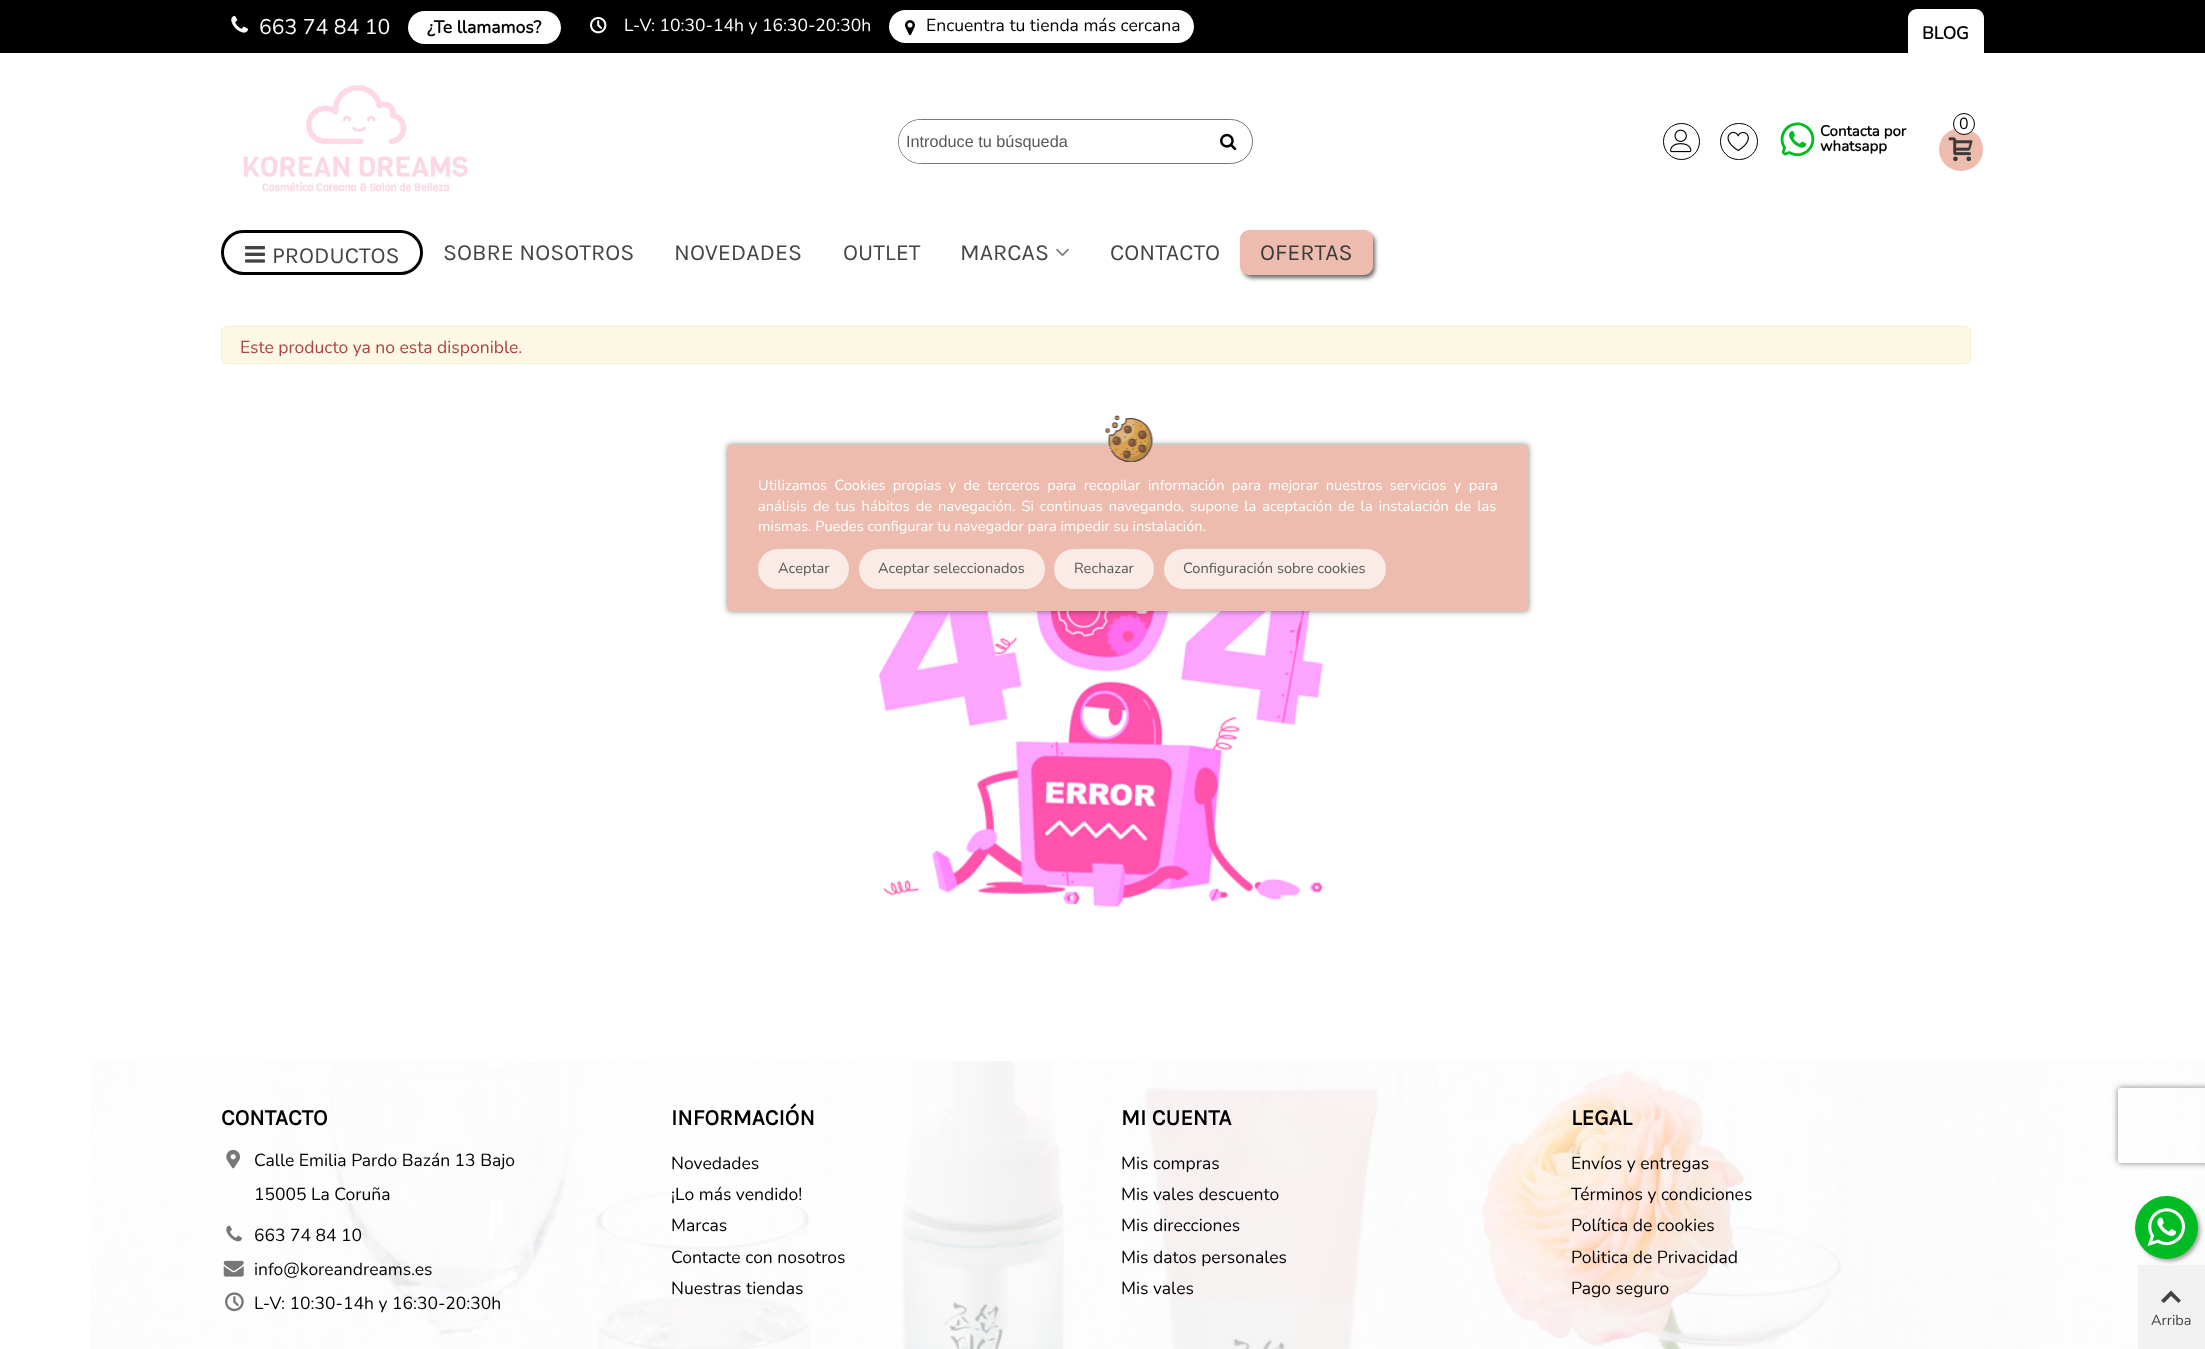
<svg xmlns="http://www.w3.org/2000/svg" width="2205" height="1349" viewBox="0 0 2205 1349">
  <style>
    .t1 { font: 200 21.25px Nunito; fill: #fff; }
    .t2 { font: bold 17.5px Nunito; fill: #000; }
    .t3 { font: 200 17.5px Nunito; fill: #fff; }
    .t4 { font: 200 17.5px Nunito; fill: #000; }
    .t5 { font: 16.25px Liberation Sans; fill: #575757; }
    .t6 { font: bold 15px Nunito; fill: #000; }
    .t7 { font: 200 16px Nunito; fill: #000; }
    .t8 { font: 23.25px Karla; fill: #444; }
    .t9 { font: 23.25px Karla; fill: #3b3b3b; }
    .t10 { font: 200 17.5px Nunito; fill: #a94442; }
    .t11 { font: bold 22.5px Karla; fill: #000; }
    .t12 { font: 200 14.5px Nunito; fill: #444; }
    .t13 { font: 200 14.62px Nunito; fill: #fff; }
    .t14 { font: 200 14.62px Nunito; fill: #575757; }
  </style>
  <defs>
    <clipPath id="clip1"><path d="M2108 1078H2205V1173H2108ZM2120.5 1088H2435.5C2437 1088 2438 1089 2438 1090.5V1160.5C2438 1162 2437 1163 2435.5 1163H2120.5C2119 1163 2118 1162 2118 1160.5V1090.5C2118 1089 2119 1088 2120.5 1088Z" clip-rule="evenodd"/></clipPath>
  </defs>
  <rect width="100%" height="100%" fill="#fff"/>
  <rect x="0" y="0" width="2205" height="53" fill="#000"/>
  <image x="231" y="16" width="17" height="17" href="images/1.png"/>
  <text x="259" y="34" class="t1">663 74 84 10</text>
  <rect x="408" y="11" width="153" height="33" rx="16.5" fill="#fff"/>
  <text x="427" y="33" class="t2">¿Te llamamos?</text>
  <image x="590" y="16" width="17" height="18" href="images/2.png"/>
  <text x="624" y="31" class="t3">L-V: 10:30-14h y 16:30-20:30h</text>
  <rect x="889" y="10" width="305" height="33" rx="16.5" fill="#fff"/>
  <image x="905" y="20" width="10" height="15" href="images/3.png"/>
  <text x="926" y="31" class="t4">Encuentra tu tienda más cercana</text>
  <path d="M1917 9H1975C1980 9 1984 13 1984 18V53H1908V18C1908 13 1912 9 1917 9Z" fill="#fff"/>
  <text x="1922" y="39" class="t2">BLOG</text>
  <image x="243" y="85" width="225" height="108" href="images/4.png"/>
  <rect x="898.5" y="119.5" width="354" height="44" rx="22" fill="none" stroke="#787878"/>
  <path d="M920.5 120H1210V163H920.5C908.5 163 899 153.5 899 141.5C899 129.5 908.5 120 920.5 120Z" fill="#fff"/>
  <text x="906" y="147" class="t5">Introduce tu búsqueda</text>
  <image x="1220" y="133" width="17" height="18" href="images/5.png"/>
  <circle cx="1681.5" cy="141.5" r="18" fill="none" stroke="#000"/>
  <image x="1670" y="129" width="22" height="24" href="images/6.png"/>
  <rect x="1720.5" y="123.5" width="37" height="36" rx="18" fill="none" stroke="#000"/>
  <image x="1727" y="131" width="22" height="20" href="images/7.png"/>
  <image x="1780" y="122" width="35" height="35" href="images/8.png"/>
  <text x="1820" y="136" class="t6">Contacta por</text>
  <text x="1820" y="151" class="t6">whatsapp</text>
  <rect x="1939" y="128" width="44" height="43" rx="21.5" fill="#edbcaf"/>
  <circle cx="1964" cy="124" r="10.5" fill="#fff" stroke="#000"/>
  <text x="1959" y="129" class="t7">0</text>
  <image x="1948" y="137" width="25" height="25" href="images/9.png"/>
  <rect x="222.5" y="231.5" width="199" height="42" rx="21" fill="none" stroke="#000" stroke-width="3"/>
  <image x="245" y="246" width="20" height="17" href="images/10.png"/>
  <text x="272" y="263" class="t8">PRODUCTOS</text>
  <text x="443" y="260" class="t8">SOBRE NOSOTROS</text>
  <text x="674" y="260" class="t8">NOVEDADES</text>
  <text x="843" y="260" class="t8">OUTLET</text>
  <text x="960" y="260" class="t8">MARCAS</text>
  <image x="1056" y="248" width="13" height="9" href="images/11.png"/>
  <text x="1110" y="260" class="t8">CONTACTO</text>
  <rect x="1243" y="233" width="132" height="45" rx="9" fill="#00000099" filter="blur(2px)"/>
  <rect x="1240" y="230" width="133" height="45" rx="9" fill="#edbcaf"/>
  <text x="1260" y="260" class="t9">OFERTAS</text>
  <rect x="221.5" y="326.5" width="1749" height="37" rx="4.5" fill="#fcf8e3" stroke="#fbeed5"/>
  <text x="240" y="353" class="t10">Este producto ya no esta disponible.</text>
  <image x="877" y="611" width="446" height="297" href="images/12.png"/>
  <image x="90" y="1061" width="2115" height="288" href="images/13.png"/>
  <text x="221" y="1125" class="t11">CONTACTO</text>
  <image x="226" y="1149" width="15" height="20" href="images/14.png"/>
  <text x="254" y="1166" class="t4">Calle Emilia Pardo Bazán 13 Bajo</text>
  <text x="254" y="1200" class="t4">15005 La Coruña</text>
  <image x="226" y="1225" width="16" height="17" href="images/15.png"/>
  <text x="254" y="1241" class="t4">663 74 84 10</text>
  <image x="223" y="1260" width="21" height="17" href="images/16.png"/>
  <text x="254" y="1275" class="t4">info@koreandreams.es</text>
  <image x="225" y="1292" width="19" height="20" href="images/17.png"/>
  <text x="254" y="1309" class="t4">L-V: 10:30-14h y 16:30-20:30h</text>
  <text x="671" y="1125" class="t11">INFORMACIÓN</text>
  <text x="671" y="1169" class="t4">Novedades</text>
  <text x="671" y="1200" class="t4">¡Lo más vendido!</text>
  <text x="671" y="1231" class="t4">Marcas</text>
  <text x="671" y="1263" class="t4">Contacte con nosotros</text>
  <text x="671" y="1294" class="t4">Nuestras tiendas</text>
  <text x="1121" y="1125" class="t11">MI CUENTA</text>
  <text x="1121" y="1169" class="t4">Mis compras</text>
  <text x="1121" y="1200" class="t4">Mis vales descuento</text>
  <text x="1121" y="1231" class="t4">Mis direcciones</text>
  <text x="1121" y="1263" class="t4">Mis datos personales</text>
  <text x="1121" y="1294" class="t4">Mis vales</text>
  <text x="1571" y="1125" class="t11">LEGAL</text>
  <text x="1571" y="1169" class="t4">Envíos y entregas</text>
  <text x="1571" y="1200" class="t4">Términos y condiciones</text>
  <text x="1571" y="1231" class="t4">Política de cookies</text>
  <text x="1571" y="1263" class="t4">Politica de Privacidad</text>
  <text x="1571" y="1294" class="t4">Pago seguro</text>
  <rect x="2138" y="1199" width="62" height="62" rx="31" fill="#999" filter="blur(2px)"/>
  <circle cx="2166.5" cy="1227.5" r="31.5" fill="#00bb23"/>
  <image x="2147" y="1208" width="38" height="38" href="images/18.png"/>
  <rect x="2138" y="1265" width="67" height="84" fill="#f2f2f2"/>
  <path d="M2161 1300.5L2171 1290.5L2181 1300.5L2178.5 1303L2171 1296L2164 1303Z" fill="#444"/>
  <text x="2151" y="1325" class="t12">Arriba</text>
  <rect x="728" y="445" width="800" height="166" fill="#00000080" filter="blur(3px)"/>
  <rect x="728" y="445" width="800" height="166" fill="#edbcaf"/>
  <image x="1104" y="415" width="49" height="47" href="images/19.png"/>
  <text x="758" y="490" word-spacing="3.6" class="t13">Utilizamos Cookies propias y de terceros para recopilar información para mejorar nuestros servicios y para</text>
  <text x="758" y="511" word-spacing="2.25" class="t13">análisis de tus hábitos de navegación. Si continuas navegando, supone la aceptación de la instalación de las</text>
  <text x="758" y="531" class="t13">mismas. Puedes configurar tu navegador para impedir su instalación.</text>
  <rect x="758" y="549" width="91" height="40" rx="20" fill="#faebe7"/>
  <text x="778" y="573" class="t14">Aceptar</text>
  <rect x="859" y="549" width="186" height="40" rx="20" fill="#faebe7"/>
  <text x="878" y="573" class="t14">Aceptar seleccionados</text>
  <rect x="1054" y="549" width="100" height="40" rx="20" fill="#faebe7"/>
  <text x="1074" y="573" class="t14">Rechazar</text>
  <rect x="1164" y="549" width="222" height="40" rx="20" fill="#faebe7"/>
  <text x="1183" y="573" class="t14">Configuración sobre cookies</text>
  <g clip-path="url(#clip1)">
    <rect x="2118" y="1088" width="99" height="75" rx="2.5" fill="#808080" filter="blur(3px)"/>
  </g>
</svg>
